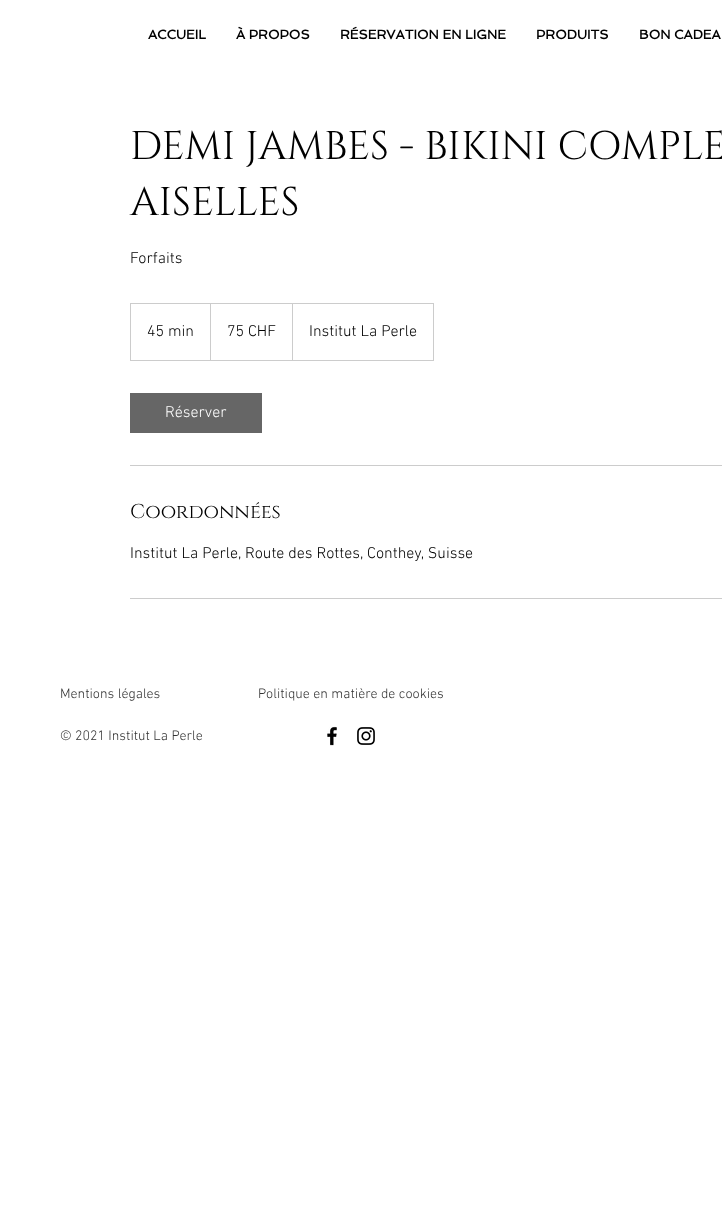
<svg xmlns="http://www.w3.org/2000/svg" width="722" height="1224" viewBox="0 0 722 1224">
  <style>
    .t1 { font: bold 13px Spinnaker; fill: #000; }
    .t2 { font: 40px Cinzel; fill: #000; }
    .t3 { font: 300 16px 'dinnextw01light'; fill: #000; }
    .t4 { font: 300 16px 'dinnextw01light'; fill: #fff; }
    .t5 { font: 20px Cinzel; fill: #000; }
    .t6 { font: 300 14px 'dinnextw01light'; fill: #333; }
  </style>
  <rect width="100%" height="100%" fill="#fff"/>
  <text x="148" y="39" class="t1">ACCUEIL</text>
  <text x="236" y="39" class="t1">À PROPOS</text>
  <text x="340" y="39" class="t1">RÉSERVATION EN LIGNE</text>
  <text x="536" y="39" class="t1">PRODUITS</text>
  <text x="639" y="39" class="t1">BON CADEA</text>
  <text x="130" y="159" class="t2">DEMI JAMBES - BIKINI COMPLE</text>
  <text x="130" y="215" class="t2">AISELLES</text>
  <text x="130" y="263" class="t3">Forfaits</text>
  <rect x="130.5" y="303.5" width="303" height="57" fill="none" stroke="#ccc"/>
  <text x="147" y="336" class="t3">45 min</text>
  <path d="M210 360V303L211 304V360Z" fill="#ccc"/>
  <text x="227" y="336" class="t3">75 CHF</text>
  <path d="M292 360V303L293 304V360Z" fill="#ccc"/>
  <text x="309" y="336" class="t3">Institut La Perle</text>
  <rect x="130" y="393" width="132" height="40" fill="#666"/>
  <text x="165" y="417" class="t4">Réserver</text>
  <rect x="130" y="465" width="592" height="1" fill="#ccc"/>
  <text x="130" y="518" class="t5">Coordonnées</text>
  <text x="130" y="558" class="t3">Institut La Perle, Route des Rottes, Conthey, Suisse</text>
  <rect x="130" y="598" width="592" height="1" fill="#ccc"/>
  <text x="60" y="698" class="t6">Mentions légales</text>
  <text x="258" y="698" class="t6">Politique en matière de cookies</text>
  <text x="60" y="740" class="t6">© 2021 Institut La Perle</text>
  <image x="327" y="726" width="10" height="20" href="images/1.png"/>
  <image x="357" y="727" width="18" height="18" href="images/2.png"/>
</svg>
